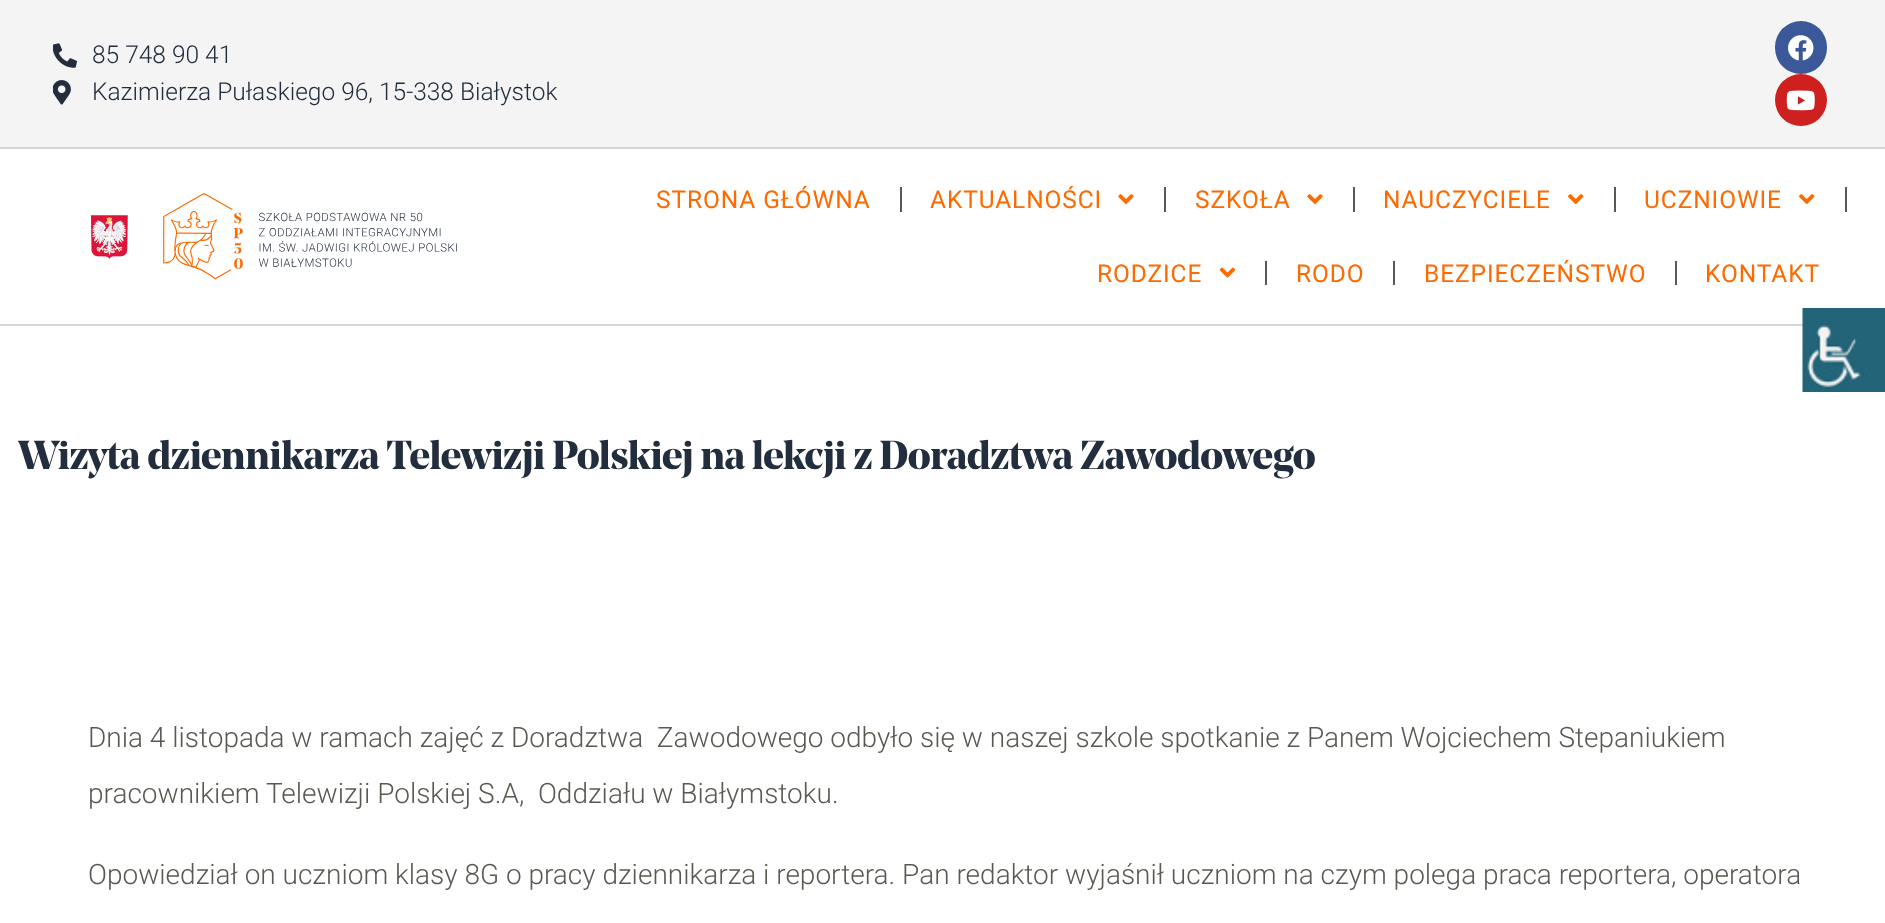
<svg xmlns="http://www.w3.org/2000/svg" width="1885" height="923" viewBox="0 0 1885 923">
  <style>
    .t1 { font: 300 24.5px Roboto; fill: #222d3d; }
    .t2 { font: 24.5px Roboto; letter-spacing: 0.9px; fill: #fc6a00; }
    .t3 { font: bold 40.25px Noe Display; letter-spacing: -0.53px; fill: #222d3d; }
    .t4 { font: 300 28px Roboto; fill: #5b5851; }
  </style>
  <rect width="100%" height="100%" fill="#fff"/>
  <rect x="0" y="0" width="1885" height="147" fill="#f4f4f4"/>
  <rect x="0" y="147" width="1885" height="2" fill="#d6d6d6"/>
  <image x="53" y="43" width="24" height="25" href="images/1.png"/>
  <text x="92" y="63" class="t1">85 748 90 41</text>
  <image x="53" y="80" width="18" height="25" href="images/2.png"/>
  <text x="92" y="100" class="t1">Kazimierza Pułaskiego 96, 15-338 Białystok</text>
  <rect x="1775" y="21" width="52" height="53" rx="26" fill="#3b5998"/>
  <image x="1788" y="35" width="26" height="26" href="images/3.png"/>
  <circle cx="1801" cy="100" r="26" fill="#cd201f"/>
  <image x="1786" y="90" width="29" height="21" href="images/4.png"/>
  <rect x="0" y="324" width="1803" height="2" fill="#d6d6d6"/>
  <image x="91" y="215" width="37" height="44" href="images/5.png"/>
  <image x="163" y="193" width="294" height="87" href="images/6.png"/>
  <text x="656" y="208" class="t2">STRONA GŁÓWNA</text>
  <rect x="900" y="187" width="2" height="25" fill="#5b5851"/>
  <text x="930" y="208" class="t2">AKTUALNOŚCI</text>
  <image x="1118" y="194" width="16" height="10" href="images/7.png"/>
  <rect x="1164" y="187" width="2" height="25" fill="#5b5851"/>
  <text x="1195" y="208" class="t2">SZKOŁA</text>
  <image x="1307" y="194" width="16" height="10" href="images/7.png"/>
  <rect x="1353" y="187" width="2" height="25" fill="#5b5851"/>
  <text x="1383" y="208" class="t2">NAUCZYCIELE</text>
  <image x="1568" y="194" width="16" height="10" href="images/8.png"/>
  <rect x="1614" y="187" width="2" height="25" fill="#5b5851"/>
  <text x="1644" y="208" class="t2">UCZNIOWIE</text>
  <image x="1799" y="194" width="16" height="10" href="images/8.png"/>
  <rect x="1845" y="187" width="2" height="25" fill="#5b5851"/>
  <text x="1097" y="282" class="t2">RODZICE</text>
  <image x="1219" y="267" width="17" height="11" href="images/9.png"/>
  <rect x="1265" y="261" width="2" height="24" fill="#5b5851"/>
  <text x="1296" y="282" class="t2">RODO</text>
  <rect x="1393" y="261" width="2" height="24" fill="#5b5851"/>
  <text x="1424" y="282" class="t2">BEZPIECZEŃSTWO</text>
  <rect x="1675" y="261" width="2" height="24" fill="#5b5851"/>
  <text x="1705" y="282" class="t2">KONTAKT</text>
  <image x="1802" y="308" width="83" height="84" href="images/10.png"/>
  <text x="18" y="469" class="t3">Wizyta dziennikarza Telewizji Polskiej na lekcji z Doradztwa Zawodowego</text>
  <text x="88" y="747" class="t4" xml:space="preserve">Dnia 4 listopada w ramach zajęć z Doradztwa  Zawodowego odbyło się w naszej szkole spotkanie z Panem Wojciechem Stepaniukiem</text>
  <text x="88" y="803" class="t4" xml:space="preserve">pracownikiem Telewizji Polskiej S.A,  Oddziału w Białymstoku.</text>
  <text x="88" y="884" class="t4">Opowiedział on uczniom klasy 8G o pracy dziennikarza i reportera. Pan redaktor wyjaśnił uczniom na czym polega praca reportera, operatora</text>
</svg>
